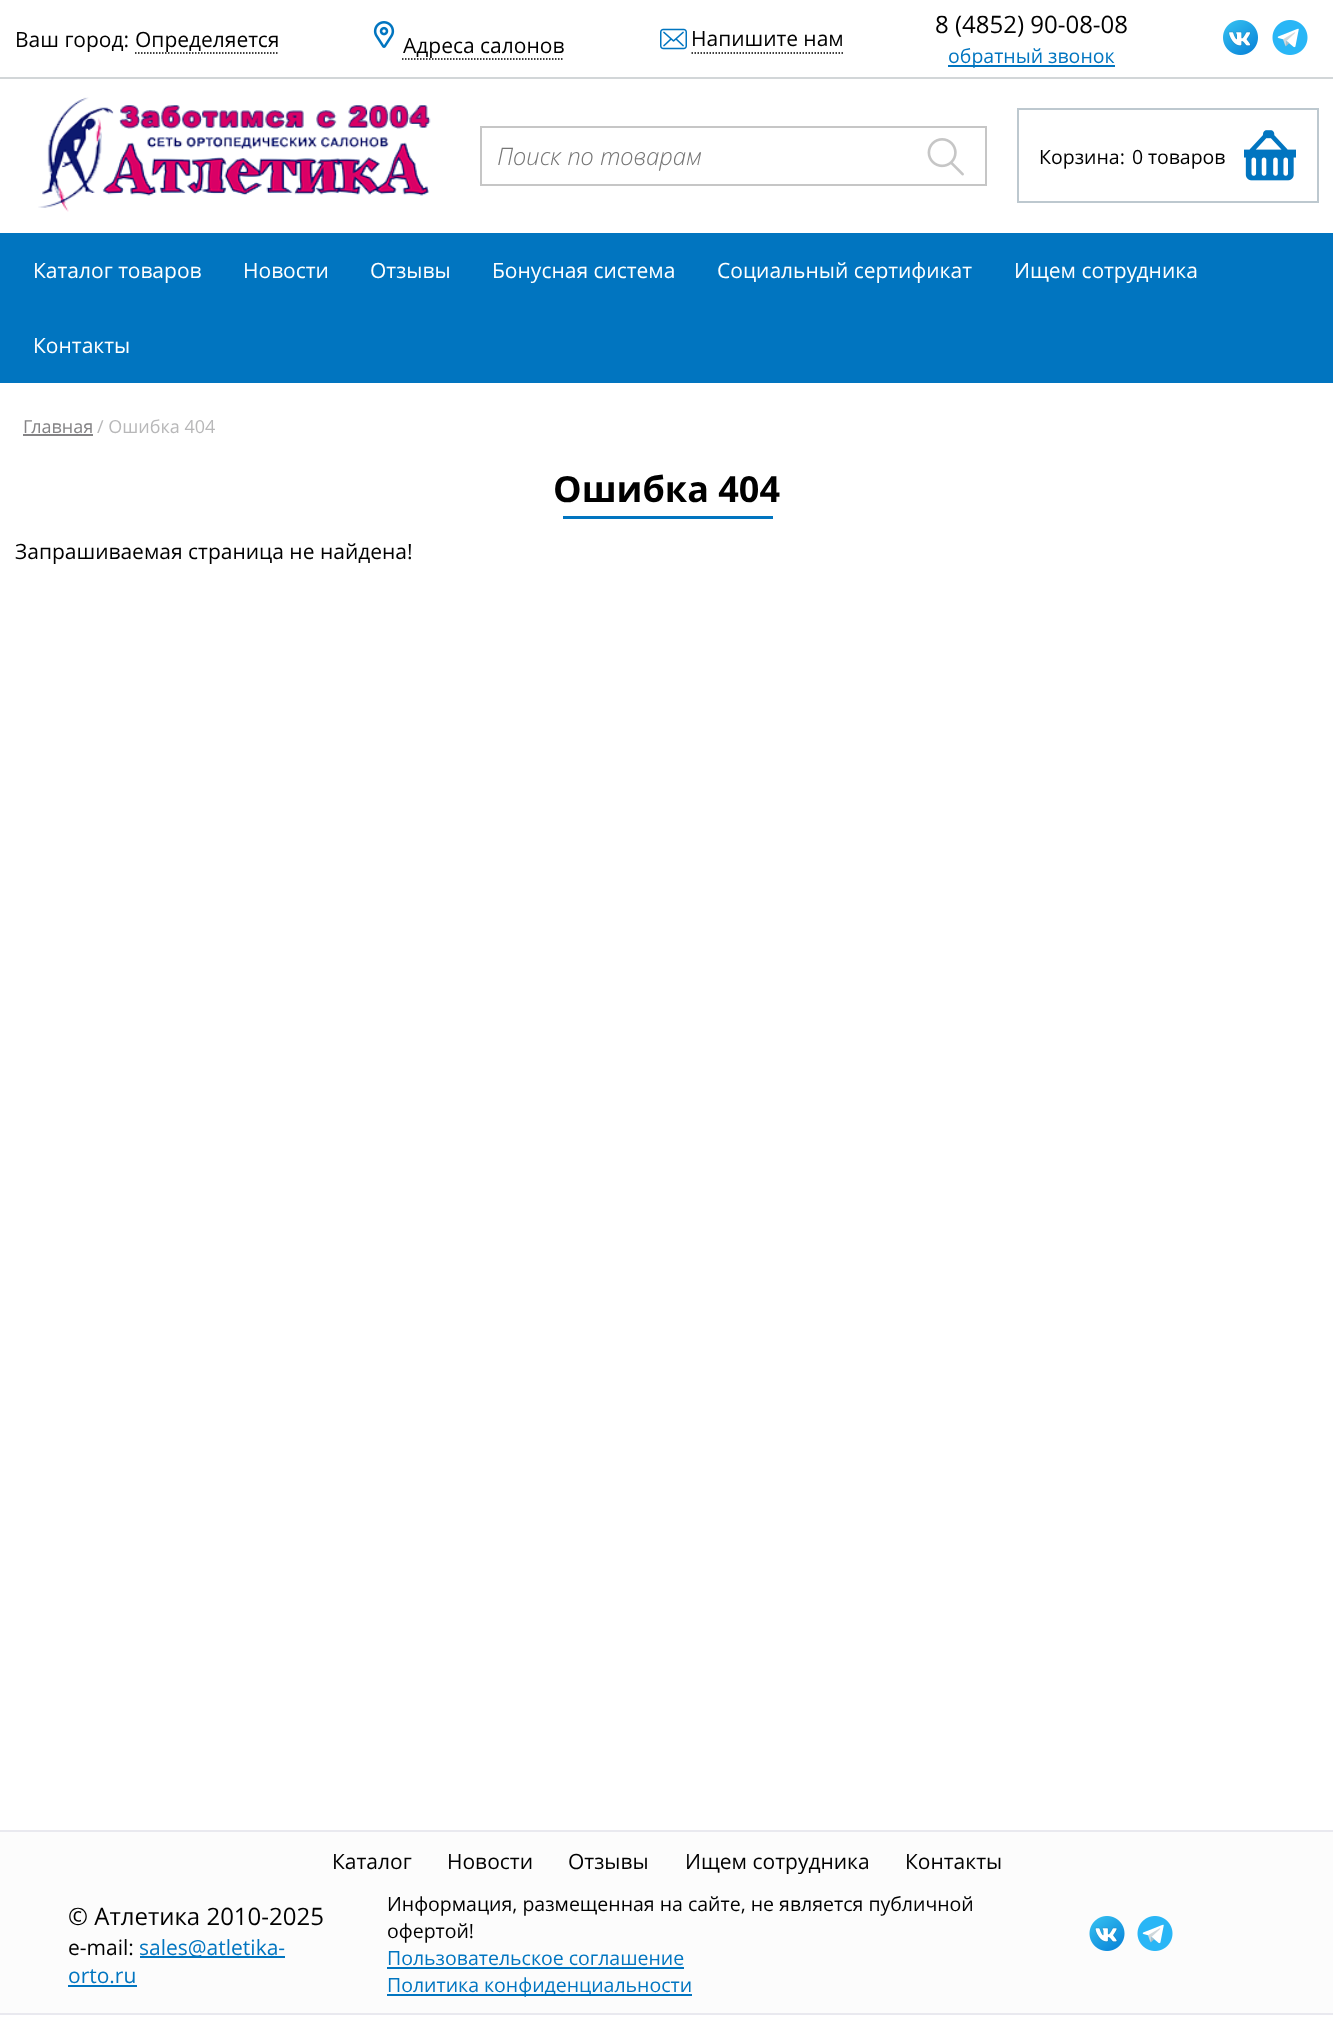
<svg xmlns="http://www.w3.org/2000/svg" width="1333" height="2020" viewBox="0 0 1333 2020">
  <style>
    .t1 { font: 21px Open Sans; fill: #000; }
    .t2 { font: 24px 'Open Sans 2'; fill: #000; }
    .t3 { font: 19.5px Open Sans; fill: #0175c0; }
    .t4 { font: italic 300 24px Open Sans; fill: #757575; }
    .t5 { font: 19.5px Open Sans; fill: #000; }
    .t6 { font: 21px Open Sans; fill: #fff; }
    .t7 { font: 18px Open Sans; fill: #848385; }
    .t8 { font: 18px Open Sans; fill: #b8b8b9; }
    .t9 { font: bold 36px Open Sans; fill: #000; }
    .t10 { font: 21px 'Open Sans 2'; fill: #000; }
    .t11 { font: 21px 'Open Sans 2'; fill: #0175c0; }
    .t12 { font: 19.5px 'Open Sans 2'; fill: #000; }
    .t13 { font: 19.5px 'Open Sans 2'; fill: #0175c0; }
  </style>
  <rect width="100%" height="100%" fill="#fff"/>
  <rect x="0" y="77" width="1333" height="2" fill="#d2d6d8"/>
  <text x="15" y="47" class="t1">Ваш город:</text>
  <path d="M135 53H279" fill="none" stroke="#000" stroke-width="1.5" stroke-dasharray="1.5 1.5"/>
  <text x="135" y="47" class="t1">Определяется</text>
  <image x="373" y="21" width="22" height="27" href="images/1.png"/>
  <path d="M402 59H564" fill="none" stroke="#000" stroke-width="1.5" stroke-dasharray="1.5 1.5"/>
  <text x="403" y="53" class="t1">Адреса салонов</text>
  <image x="660" y="28" width="27" height="22" href="images/2.png"/>
  <path d="M691.5 53H844.5" fill="none" stroke="#000" stroke-width="1.5" stroke-dasharray="1.5 1.5"/>
  <text x="691" y="46" class="t1">Напишите нам</text>
  <text x="935" y="33" class="t2">8 (4852) 90-08-08</text>
  <rect x="948" y="65" width="167" height="2" fill="#0175c0"/>
  <text x="948" y="63" class="t3">обратный звонок</text>
  <image x="1223" y="20" width="35" height="35" href="images/3.png"/>
  <image x="1272" y="20" width="36" height="35" href="images/4.png"/>
  <image x="38" y="97" width="393" height="115" href="images/5.png"/>
  <rect x="481" y="127" width="505" height="58" fill="none" stroke="#c6c6c6" stroke-width="2"/>
  <text x="497" y="165" class="t4">Поиск по товарам</text>
  <image x="927" y="138" width="37" height="38" href="images/6.png"/>
  <image x="1244" y="130" width="52" height="51" href="images/7.png"/>
  <rect x="1018" y="109" width="300" height="93" fill="none" stroke="#bdc8cf" stroke-width="2"/>
  <text x="1039" y="164" class="t5">Корзина:</text>
  <text x="1132" y="164" class="t5">0</text>
  <text x="1148" y="164" class="t5">товаров</text>
  <rect x="0" y="233" width="1333" height="150" fill="#0175c0"/>
  <text x="33" y="278" class="t6">Каталог товаров</text>
  <text x="243" y="278" class="t6">Новости</text>
  <text x="370" y="278" class="t6">Отзывы</text>
  <text x="492" y="278" class="t6">Бонусная система</text>
  <text x="717" y="278" class="t6">Социальный сертификат</text>
  <text x="1014" y="278" class="t6">Ищем сотрудника</text>
  <text x="33" y="353" class="t6">Контакты</text>
  <text x="23" y="433" class="t7">Главная</text>
  <rect x="23" y="434" width="70" height="2" fill="#848385"/>
  <text x="97" y="433" class="t8">/ Ошибка 404</text>
  <text x="553" y="502" class="t9">Ошибка 404</text>
  <rect x="563" y="516" width="210" height="3" fill="#0175c0"/>
  <text x="15" y="559" class="t1">Запрашиваемая страница не найдена!</text>
  <rect x="0" y="1832" width="1333" height="181" fill="#fcfcfc"/>
  <rect x="0" y="1830" width="1333" height="2" fill="#e9e9ef"/>
  <rect x="0" y="2013" width="1333" height="2" fill="#e9e9ef"/>
  <text x="332" y="1869" class="t10">Каталог</text>
  <text x="447" y="1869" class="t10">Новости</text>
  <text x="568" y="1869" class="t10">Отзывы</text>
  <text x="685" y="1869" class="t10">Ищем сотрудника</text>
  <text x="905" y="1869" class="t10">Контакты</text>
  <text x="68" y="1925" class="t2">© Атлетика 2010-2025</text>
  <text x="68" y="1955" class="t10">e-mail:</text>
  <rect x="140" y="1956" width="145" height="2" fill="#0175c0"/>
  <text x="139" y="1955" class="t11">sales@atletika-</text>
  <text x="68" y="1983" class="t11">orto.ru</text>
  <rect x="68" y="1985" width="69" height="2" fill="#0175c0"/>
  <text x="387" y="1911" class="t12">Информация, размещенная на сайте, не является публичной</text>
  <text x="387" y="1938" class="t12">офертой!</text>
  <text x="387" y="1965" class="t13">Пользовательское соглашение</text>
  <rect x="387" y="1967" width="297" height="2" fill="#0175c0"/>
  <rect x="387" y="1994" width="305" height="2" fill="#0175c0"/>
  <text x="387" y="1992" class="t13">Политика конфиденциальности</text>
  <image x="1089" y="1916" width="36" height="35" href="images/8.png"/>
  <image x="1137" y="1916" width="36" height="35" href="images/9.png"/>
</svg>
